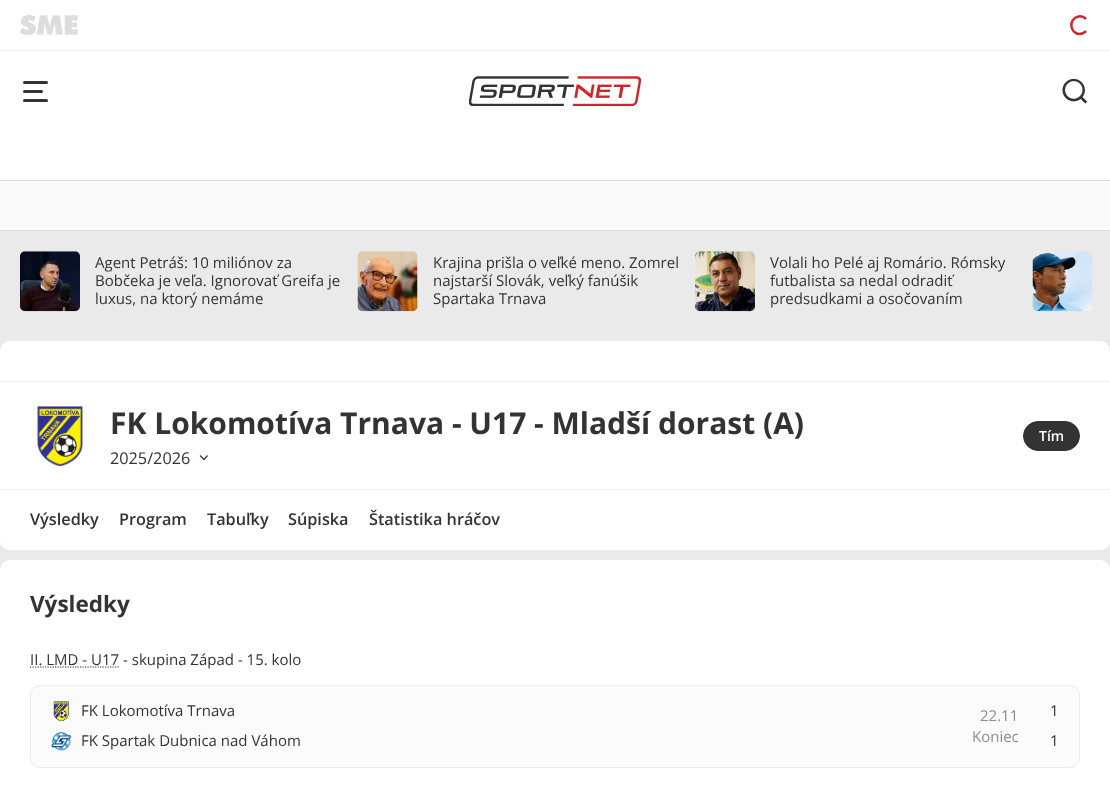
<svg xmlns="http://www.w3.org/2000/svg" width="1110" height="792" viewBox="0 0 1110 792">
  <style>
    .t1 { font: 15px Open Sans; fill: #333; }
    .t2 { font: bold 30px Open Sans; fill: #333; }
    .t3 { font: 16.25px Open Sans; fill: #333; }
    .t4 { font: 600 14px Open Sans; fill: #fff; }
    .t5 { font: 600 16.25px Open Sans; fill: #333; }
    .t6 { font: bold 22.5px Open Sans; fill: #333; }
    .t7 { font: 15px Open Sans; fill: #8b8b8b; }
  </style>
  <defs>
    <linearGradient id="g1" gradientUnits="userSpaceOnUse" x1="1035" y1="520" x2="1110" y2="520"><stop offset="0" stop-color="#fff" stop-opacity="0"/><stop offset="1" stop-color="#fff"/></linearGradient>
  </defs>
  <rect width="100%" height="100%" fill="#eaeaea"/>
  <rect x="0" y="0" width="1110" height="50" fill="#fff"/>
  <rect x="0" y="50" width="1110" height="1" fill="#efefef"/>
  <image x="20" y="15" width="58" height="20" href="images/1.png"/>
  <path d="M1086 31C1084.5 33 1082.5 33.5 1080 34C1069.5 34 1068 18.5 1078.5 16.5C1081 16 1084 17 1086 19" fill="none" stroke="#cf2528" stroke-width="2.5"/>
  <rect x="0" y="51" width="1110" height="129" fill="#fff"/>
  <rect x="23" y="81" width="25" height="3" rx="1.5" fill="#333"/>
  <rect x="23" y="90" width="20" height="3" rx="1.5" fill="#333"/>
  <rect x="23" y="99" width="25" height="3" rx="1.5" fill="#333"/>
  <image x="469" y="76" width="172" height="30" href="images/2.png"/>
  <image x="1062" y="78" width="26" height="26" href="images/3.png"/>
  <rect x="0" y="180" width="1110" height="1" fill="#ddd"/>
  <rect x="0" y="181" width="1110" height="49" fill="#f9f9f9"/>
  <rect x="0" y="230" width="1110" height="1" fill="#ddd"/>
  <image x="20" y="251" width="60" height="61" href="images/4.png"/>
  <text x="95" y="268" class="t1">Agent Petráš: 10 miliónov za</text>
  <text x="95" y="286" class="t1">Bobčeka je veľa. Ignorovať Greifa je</text>
  <text x="95" y="304" class="t1">luxus, na ktorý nemáme</text>
  <image x="357" y="251" width="61" height="61" href="images/5.png"/>
  <text x="433" y="268" class="t1">Krajina prišla o veľké meno. Zomrel</text>
  <text x="433" y="286" class="t1">najstarší Slovák, veľký fanúšik</text>
  <text x="433" y="304" class="t1">Spartaka Trnava</text>
  <image x="695" y="251" width="60" height="61" href="images/6.png"/>
  <text x="770" y="268" class="t1">Volali ho Pelé aj Romário. Rómsky</text>
  <text x="770" y="286" class="t1">futbalista sa nedal odradiť</text>
  <text x="770" y="304" class="t1">predsudkami a osočovaním</text>
  <image x="1032" y="251" width="61" height="61" href="images/7.png"/>
  <rect x="0" y="341" width="1110" height="209" rx="10" fill="#fff"/>
  <rect x="0" y="381" width="1110" height="1" fill="#efefef"/>
  <rect x="0" y="489" width="1110" height="1" fill="#efefef"/>
  <image x="37" y="406" width="46" height="61" href="images/8.png"/>
  <text x="110" y="434" class="t2">FK Lokomotíva Trnava - U17 - Mladší dorast (A)</text>
  <text x="110" y="464" class="t3">2025/2026</text>
  <path d="M207.5 455.5L204 459.5L200 455.5" fill="none" stroke="#333" stroke-width="1.2"/>
  <rect x="1023.5" y="421.5" width="56" height="29" rx="14.5" fill="#333" stroke="#333"/>
  <text x="1039" y="441" class="t4">Tím</text>
  <path d="M0 490H1110V540C1110 545.5 1105.5 550 1100 550H10C4.5 550 0 545.5 0 540Z" fill="#fff"/>
  <text x="30" y="525" class="t5">Výsledky</text>
  <text x="119" y="525" class="t5">Program</text>
  <text x="207" y="525" class="t5">Tabuľky</text>
  <text x="288" y="525" class="t5">Súpiska</text>
  <text x="369" y="525" class="t5">Štatistika hráčov</text>
  <path d="M1035 490H1110V540C1110 545.5 1105.5 550 1100 550H1035Z" fill="url(#g1)"/>
  <rect x="0" y="560" width="1110" height="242" rx="10" fill="#fff"/>
  <text x="30" y="612" class="t6">Výsledky</text>
  <path d="M30 667H119" fill="none" stroke="#333" stroke-width="1.2" stroke-dasharray="1.25 1.25"/>
  <text x="30" y="665" class="t1">II. LMD - U17 - skupina Západ - 15. kolo</text>
  <rect x="30.5" y="685.5" width="1049" height="82" rx="9.5" fill="#fbfbfb" stroke="#ebebeb"/>
  <image x="53" y="701" width="16" height="21" href="images/9.png"/>
  <text x="81" y="716" class="t1">FK Lokomotíva Trnava</text>
  <image x="51" y="732" width="21" height="19" href="images/10.png"/>
  <text x="81" y="746" class="t1">FK Spartak Dubnica nad Váhom</text>
  <text x="980" y="721" class="t7">22.11</text>
  <text x="972" y="742" class="t7">Koniec</text>
  <text x="1050" y="716" class="t1">1</text>
  <text x="1050" y="746" class="t1">1</text>
</svg>
